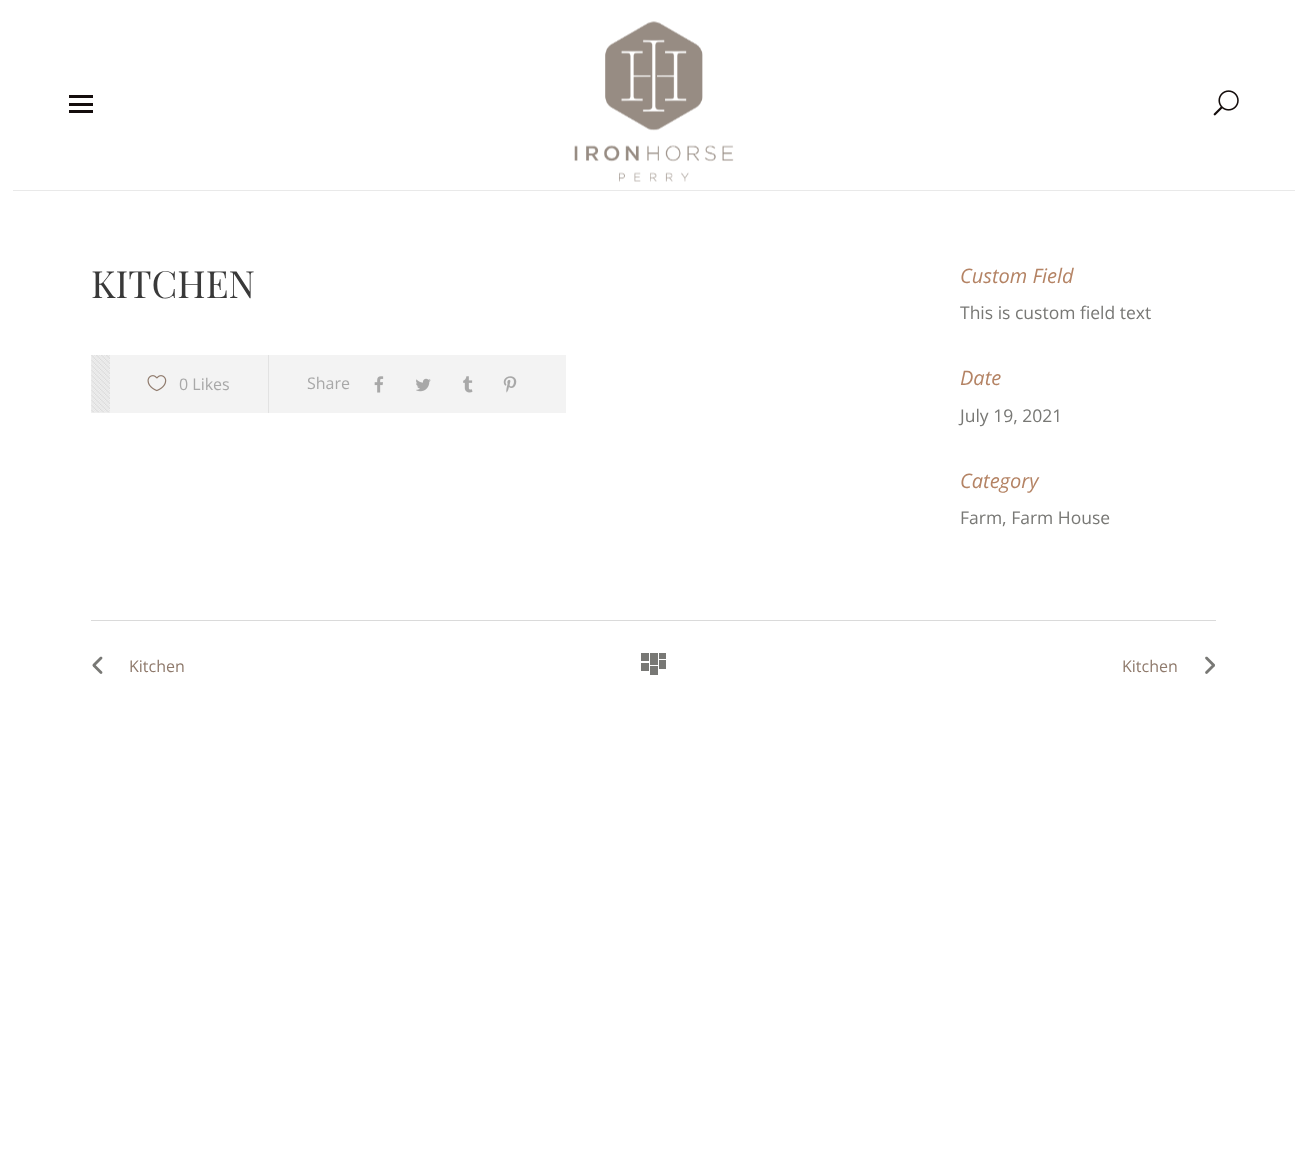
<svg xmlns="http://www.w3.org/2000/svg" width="1307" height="1174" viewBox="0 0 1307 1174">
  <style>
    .t1 { font: 37.5px Playfair Display; fill: #393939; }
    .t2 { font: 16px Open Sans; fill: #a8a8a8; }
    .t3 { font: italic 20px Open Sans; fill: #b48364; }
    .t4 { font: 17.5px Open Sans; fill: #787875; }
    .t5 { font: 16px Open Sans; fill: #8f7a6c; }
  </style>
  <rect width="100%" height="100%" fill="#fff"/>
  <rect x="69" y="103" width="24" height="3" fill="#140d0c"/>
  <rect x="69" y="95" width="24" height="3" fill="#140d0c"/>
  <rect x="69" y="110" width="24" height="3" fill="#140d0c"/>
  <image x="574" y="21" width="160" height="161" href="images/1.png"/>
  <image x="1213" y="90" width="26" height="26" href="images/2.png"/>
  <rect x="13" y="190" width="1282" height="1" fill="#e9e9e9"/>
  <text x="91" y="298" class="t1">KITCHEN</text>
  <rect x="91" y="355" width="475" height="58" fill="#f3f3f3"/>
  <image x="91" y="355" width="19" height="58" href="images/3.png"/>
  <image x="147" y="375" width="20" height="17" href="images/4.png"/>
  <text x="179" y="390" class="t2">0 Likes</text>
  <rect x="268" y="355" width="1" height="58" fill="#e2e2e2"/>
  <text x="307" y="389" class="t2">Share</text>
  <image x="374" y="376" width="10" height="17" href="images/5.png"/>
  <image x="416" y="378" width="15" height="14" href="images/6.png"/>
  <image x="463" y="376" width="10" height="17" href="images/7.png"/>
  <image x="503" y="376" width="14" height="17" href="images/8.png"/>
  <text x="960" y="283" class="t3">Custom Field</text>
  <text x="960" y="319" class="t4">This is custom field text</text>
  <text x="960" y="385" class="t3">Date</text>
  <text x="960" y="422" class="t4">July 19, 2021</text>
  <text x="960" y="488" class="t3">Category</text>
  <text x="960" y="524" class="t4">Farm, Farm House</text>
  <rect x="91" y="620" width="1125" height="1" fill="#dadada"/>
  <path d="M93 664L100 657C100.5 656.5 101.5 656.5 102 657C102.5 657.5 102.5 658.5 102 659L95 666C94.5 666.5 93.5 666.5 93 666C92.5 665.5 92.5 664.5 93 664Z" fill="#787875"/>
  <text x="129" y="672" class="t5">Kitchen</text>
  <path d="M95 664.5L102 671.5C102.5 672 102.5 673 102 673.5C101.5 674 100.5 674 100 673.5L93 666.5C92.5 666 92.5 665 93 664.5C93.5 664 94.5 664 95 664.5Z" fill="#787875"/>
  <rect x="641" y="653" width="8" height="8" fill="#787875"/>
  <rect x="650" y="653" width="8" height="12" fill="#787875"/>
  <rect x="659" y="653" width="7" height="6" fill="#787875"/>
  <rect x="641" y="663" width="8" height="8" fill="#787875"/>
  <rect x="650" y="666" width="8" height="9" fill="#787875"/>
  <rect x="659" y="660" width="7" height="9" fill="#787875"/>
  <text x="1122" y="672" class="t5">Kitchen</text>
  <path d="M1207.5 657L1214.5 664C1215 664.5 1215 665.5 1214.5 666C1214 666.5 1213 666.5 1212.5 666L1205.5 659C1205 658.5 1205 657.5 1205.5 657C1206 656.5 1207 656.5 1207.5 657Z" fill="#787875"/>
  <path d="M1205.5 671.5L1212.5 664.5C1213 664 1214 664 1214.5 664.5C1215 665 1215 666 1214.5 666.5L1207.5 673.5C1207 674 1206 674 1205.5 673.5C1205 673 1205 672 1205.5 671.5Z" fill="#787875"/>
</svg>
